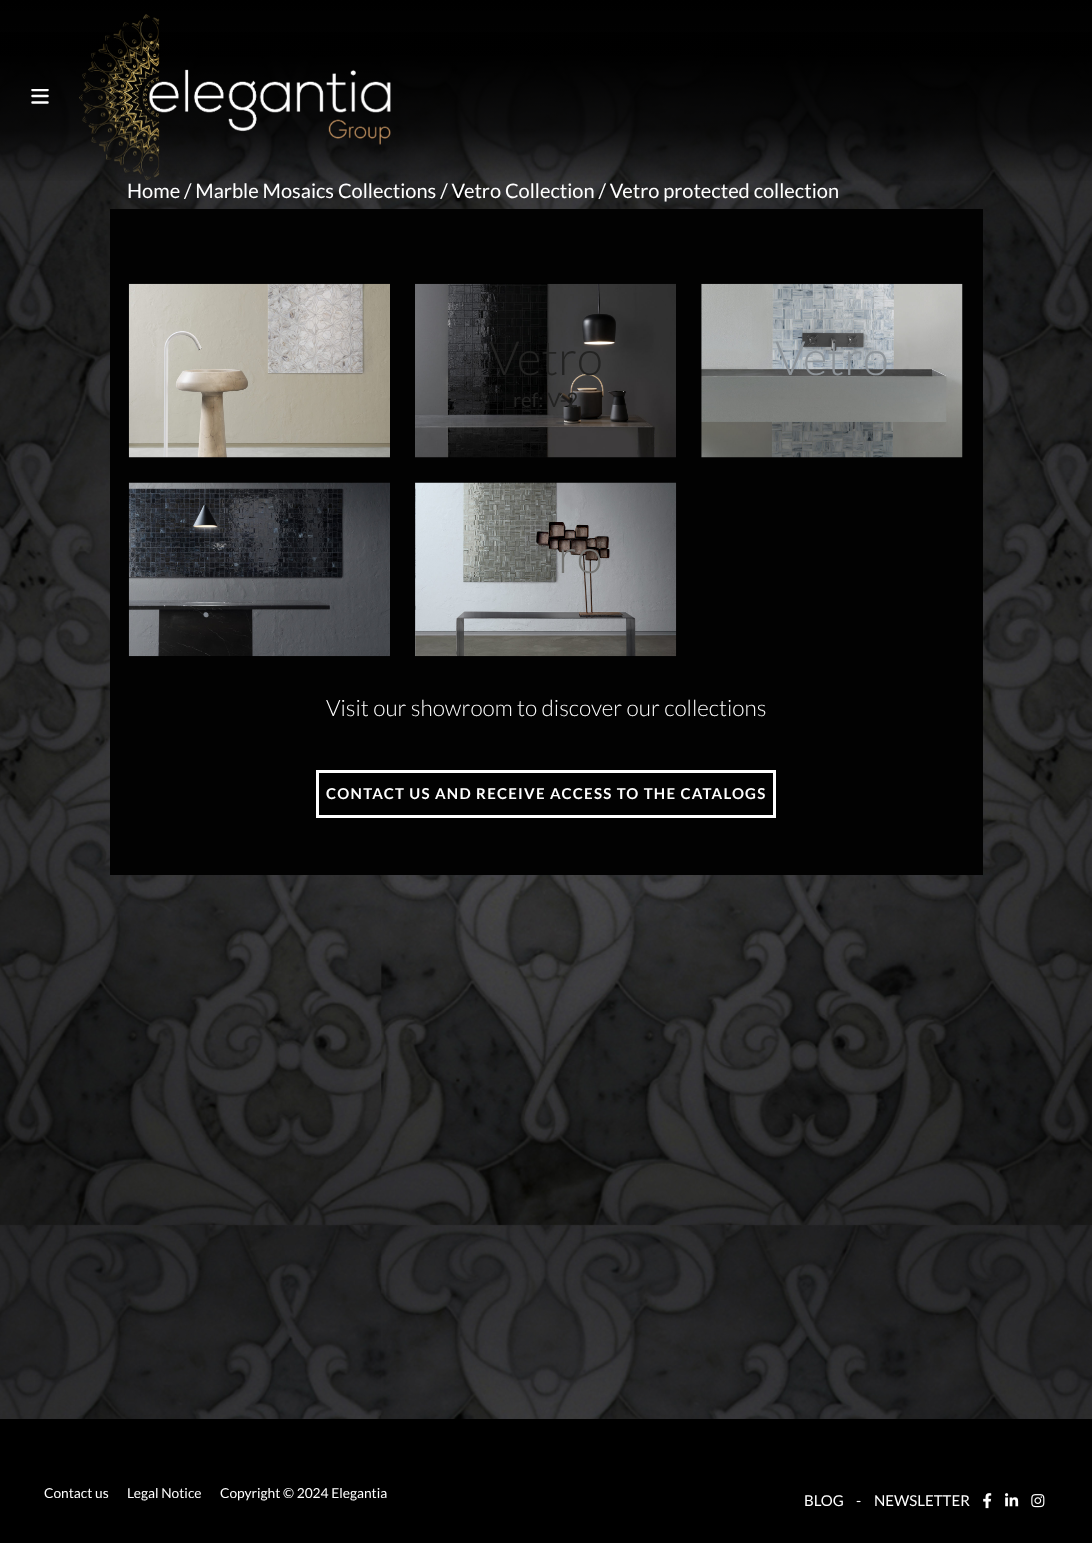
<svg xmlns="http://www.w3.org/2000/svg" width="1092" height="1543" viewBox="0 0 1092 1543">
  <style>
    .t1 { font: 20px Lato; fill: #fff; }
    .t2 { font: 300 47.5px Lato; fill: #232322; }
    .t3 { font: 20px Lato; fill: #232322; }
    .t4 { font: 300 47.5px Lato; fill: #8e9499; }
    .t5 { font: 300 47.5px Lato; fill: #747471; }
    .t6 { font: 300 22.5px Lato; fill: #fff; }
    .t7 { font: bold 15px Lato; letter-spacing: 1.25px; fill: #fff; }
    .t8 { font: 13.75px Lato; fill: #fff; }
    .t9 { font: 15px Lato; fill: #fff; }
  </style>
  <defs>
    <linearGradient id="g1" gradientUnits="userSpaceOnUse" x1="546" y1="0" x2="546" y2="184"><stop offset="0" stop-color="#000"/><stop offset="0.3" stop-color="#000" stop-opacity="0.99"/><stop offset="0.71" stop-color="#000" stop-opacity="0.71"/><stop offset="1" stop-color="#000" stop-opacity="0"/></linearGradient>
    <clipPath id="clip1"><rect x="31" y="89" width="25" height="15"/></clipPath>
  </defs>
  <rect width="100%" height="100%" fill="#fff"/>
  <image x="0" y="32" width="1092" height="1387" href="images/2.png"/>
  <rect x="0" y="0" width="1092" height="181" fill="url(#g1)"/>
  <g clip-path="url(#clip1)">
    <path d="M32.5 90H47.5" fill="none" stroke="#fff" stroke-width="2.5" stroke-linecap="round" stroke-linejoin="round"/>
  </g>
  <path d="M32.5 96H47.5M32.5 102.5H47.5" fill="none" stroke="#fff" stroke-width="2.5" stroke-linecap="round" stroke-linejoin="round"/>
  <image x="79" y="14" width="312" height="167" href="images/1.png"/>
  <text x="127" y="198" class="t1">Home / Marble Mosaics Collections / Vetro Collection / Vetro protected collection</text>
  <rect x="110" y="209" width="873" height="666" fill="#020202"/>
  <image x="128" y="283" width="262" height="175" href="images/3.png"/>
  <image x="415" y="283" width="261" height="175" href="images/4.png"/>
  <text x="489" y="375" class="t2">Vetro</text>
  <text x="513" y="407" class="t3">ref: V-2</text>
  <image x="701" y="283" width="262" height="175" href="images/5.png"/>
  <text x="775" y="375" class="t4">Vetro</text>
  <image x="128" y="482" width="262" height="175" href="images/6.png"/>
  <image x="415" y="482" width="262" height="175" href="images/7.png"/>
  <text x="558" y="573" class="t5">ro</text>
  <text x="326" y="716" class="t6">Visit our showroom to discover our collections</text>
  <rect x="317.5" y="771.5" width="457" height="45" fill="none" stroke="#fff" stroke-width="3"/>
  <text x="326" y="799" class="t7">CONTACT US AND RECEIVE ACCESS TO THE CATALOGS</text>
  <rect x="0" y="1419" width="1092" height="124" fill="#000"/>
  <text x="44" y="1498" class="t8">Contact us</text>
  <text x="127" y="1498" class="t8">Legal Notice</text>
  <text x="220" y="1498" class="t8">Copyright © 2024 Elegantia</text>
  <text x="804" y="1506" class="t9">BLOG</text>
  <text x="856" y="1506" class="t9">-</text>
  <text x="874" y="1506" class="t9">NEWSLETTER</text>
  <image x="983" y="1493" width="9" height="16" href="images/8.png"/>
  <image x="1005" y="1493" width="14" height="14" href="images/9.png"/>
  <image x="1031" y="1494" width="14" height="14" href="images/10.png"/>
</svg>
